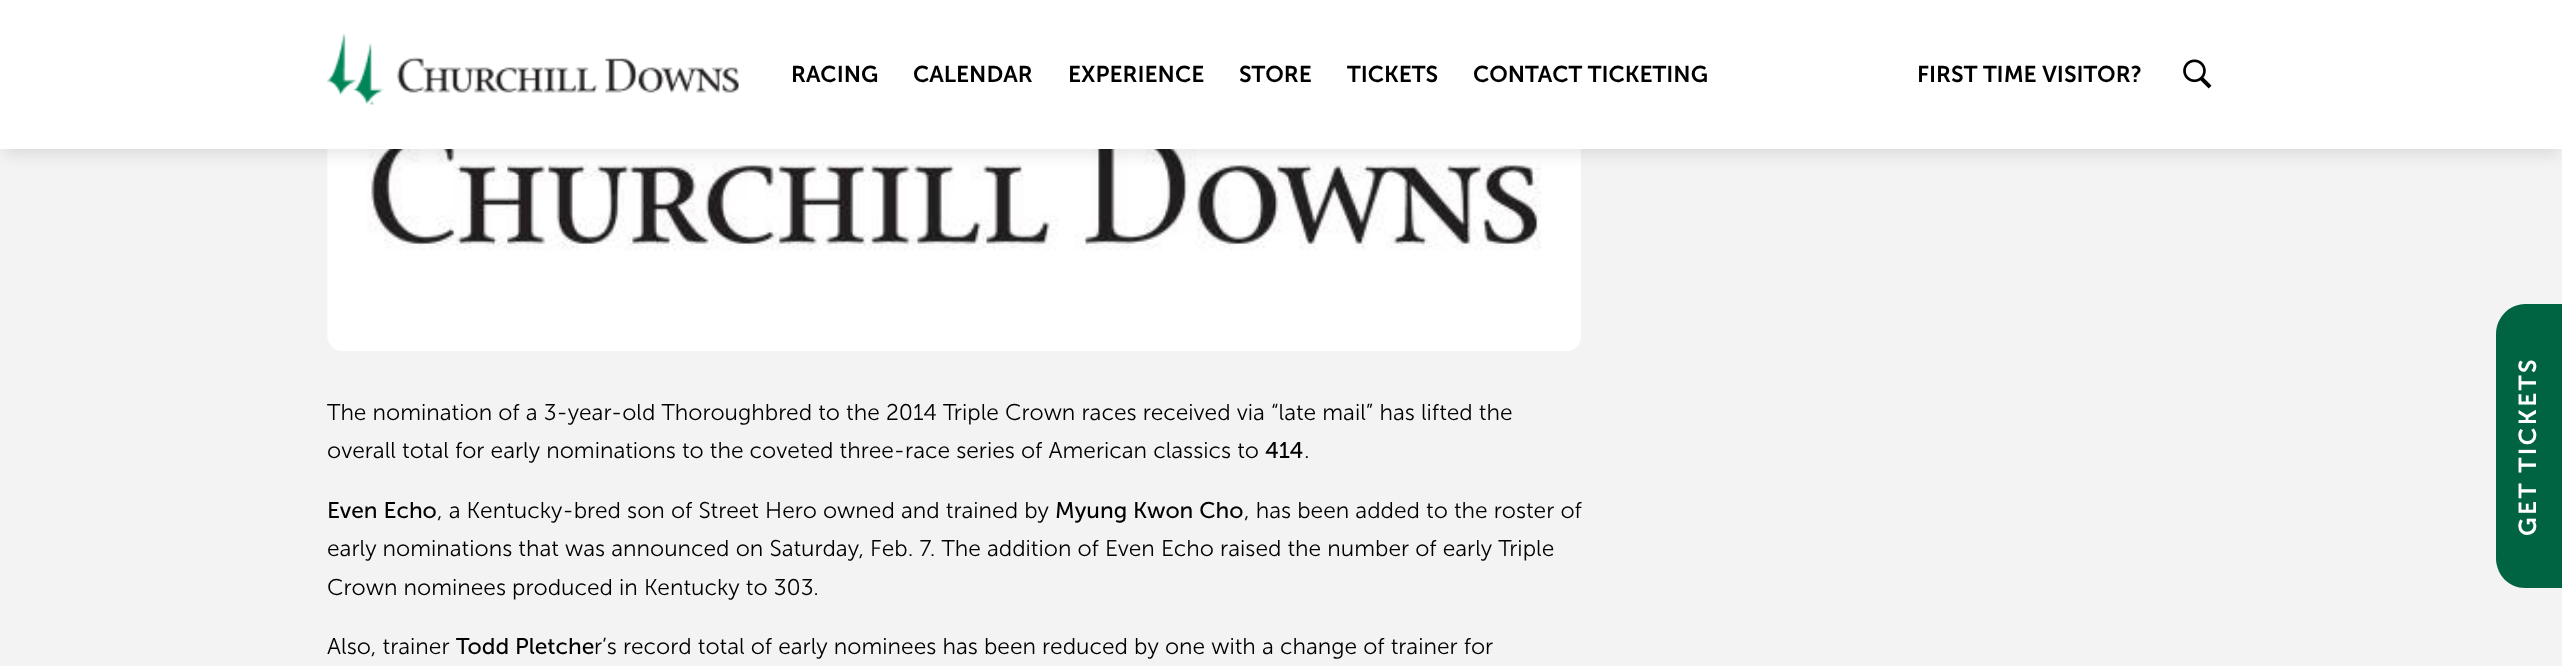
<svg xmlns="http://www.w3.org/2000/svg" width="2562" height="666" viewBox="0 0 2562 666">
  <style>
    .t1 { font: 600 22.75px 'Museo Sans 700'; fill: #000; }
    .t2 { font: 300 22.75px 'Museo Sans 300'; fill: #000; }
    .t3 { font: 22.75px 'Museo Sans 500'; fill: #000; }
    .t4 { font: 600 24.5px 'Museo Sans 700'; letter-spacing: 2.5px; fill: #fff; }
  </style>
  <rect width="100%" height="100%" fill="#f3f3f3"/>
  <image x="327" y="149" width="1254" height="202" href="images/3.png"/>
  <rect x="4" y="12" width="2555" height="142" fill="#0000001a" filter="blur(8px)"/>
  <rect x="0" y="0" width="2562" height="149" fill="#fff"/>
  <image x="327" y="33" width="412" height="72" href="images/1.png"/>
  <text x="791" y="82" class="t1">RACING</text>
  <text x="913" y="82" class="t1">CALENDAR</text>
  <text x="1068" y="82" class="t1">EXPERIENCE</text>
  <text x="1239" y="82" class="t1">STORE</text>
  <text x="1347" y="82" class="t1">TICKETS</text>
  <text x="1473" y="82" class="t1">CONTACT TICKETING</text>
  <text x="1917" y="82" class="t1">FIRST TIME VISITOR?</text>
  <image x="2183" y="59" width="29" height="30" href="images/2.png"/>
  <text x="327" y="420" class="t2">The nomination of a 3-year-old Thoroughbred to the 2014 Triple Crown races received via “late mail” has lifted the</text>
  <text x="327" y="458" class="t2">overall total for early nominations to the coveted three-race series of American classics to</text>
  <text x="1265" y="458" class="t3">414</text>
  <text x="1304" y="458" class="t2">.</text>
  <text x="327" y="518" class="t3">Even Echo</text>
  <text x="437" y="518" class="t2">, a Kentucky-bred son of Street Hero owned and trained by</text>
  <text x="1055" y="518" class="t3">Myung Kwon Cho</text>
  <text x="1244" y="518" class="t2">, has been added to the roster of</text>
  <text x="327" y="556" class="t2">early nominations that was announced on Saturday, Feb. 7. The addition of Even Echo raised the number of early Triple</text>
  <text x="327" y="595" class="t2">Crown nominees produced in Kentucky to 303.</text>
  <text x="327" y="654" class="t2">Also, trainer</text>
  <text x="456" y="654" class="t3">Todd Pletche</text>
  <text x="594" y="654" class="t2">r’s record total of early nominees has been reduced by one with a change of trainer for</text>
  <path d="M2496 558V334C2496 318 2509 304 2525 304H2562V588H2525C2509 588 2496 575 2496 558Z" fill="#006341"/>
  <text x="2536" y="536" transform="rotate(-90 2536 536)" class="t4">GET TICKETS</text>
</svg>
